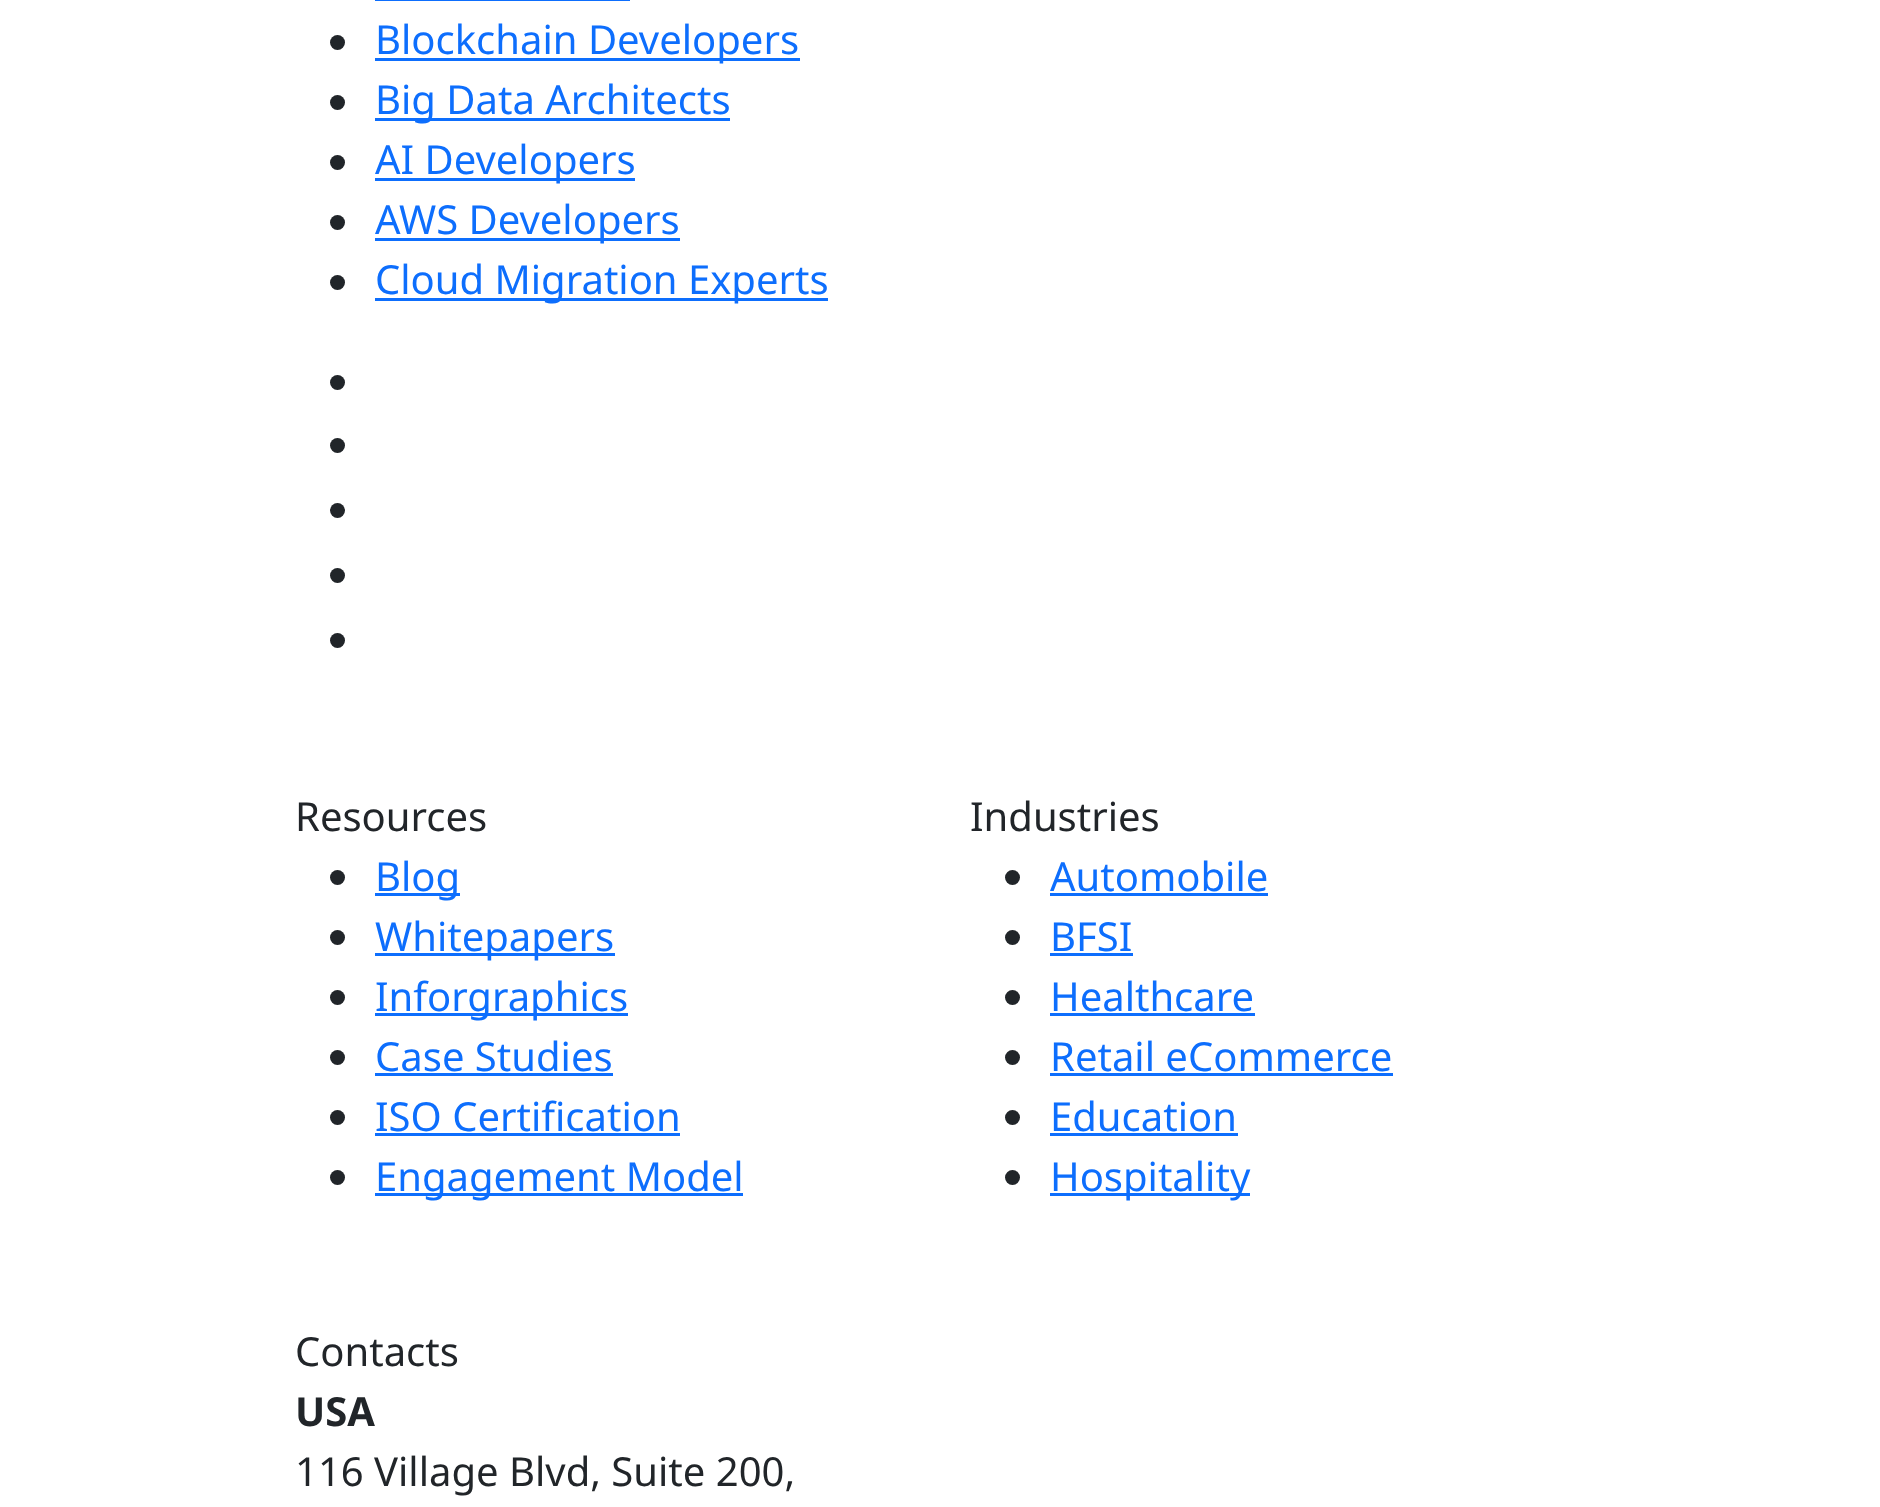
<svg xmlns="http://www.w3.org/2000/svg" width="1880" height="1507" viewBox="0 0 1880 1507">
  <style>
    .t1 { font: 40px Noto Sans; fill: #0d6efd; }
    .t2 { font: 40px Noto Sans; fill: #212529; }
    .t3 { font: bold 40px Noto Sans; fill: #212529; }
  </style>
  <rect width="100%" height="100%" fill="#fff"/>
  <rect x="375" y="0" width="255" height="1" fill="#0d6efd"/>
  <circle cx="337.5" cy="42.5" r="7.5" fill="#212529"/>
  <rect x="375" y="58" width="425" height="3" fill="#0d6efd"/>
  <text x="375" y="54" class="t1">Blockchain Developers</text>
  <circle cx="337.5" cy="102.5" r="7.5" fill="#212529"/>
  <rect x="375" y="118" width="355" height="3" fill="#0d6efd"/>
  <text x="375" y="114" class="t1">Big Data Architects</text>
  <circle cx="337.5" cy="162.5" r="7.5" fill="#212529"/>
  <rect x="375" y="178" width="260" height="3" fill="#0d6efd"/>
  <text x="375" y="174" class="t1">AI Developers</text>
  <circle cx="337.5" cy="222.5" r="7.5" fill="#212529"/>
  <rect x="375" y="238" width="305" height="3" fill="#0d6efd"/>
  <text x="375" y="234" class="t1">AWS Developers</text>
  <circle cx="337.5" cy="282.5" r="7.5" fill="#212529"/>
  <rect x="375" y="298" width="453" height="3" fill="#0d6efd"/>
  <text x="375" y="294" class="t1">Cloud Migration Experts</text>
  <circle cx="337.5" cy="382.5" r="7.5" fill="#212529"/>
  <circle cx="337.5" cy="445.5" r="7.5" fill="#212529"/>
  <circle cx="337.5" cy="510.5" r="7.5" fill="#212529"/>
  <circle cx="337.5" cy="575.5" r="7.5" fill="#212529"/>
  <circle cx="337.5" cy="640.5" r="7.5" fill="#212529"/>
  <text x="295" y="831" class="t2">Resources</text>
  <circle cx="337.5" cy="877.5" r="7.5" fill="#212529"/>
  <rect x="375" y="893" width="85" height="3" fill="#0d6efd"/>
  <text x="375" y="891" class="t1">Blog</text>
  <circle cx="337.5" cy="937.5" r="7.5" fill="#212529"/>
  <rect x="375" y="953" width="240" height="3" fill="#0d6efd"/>
  <text x="375" y="951" class="t1">Whitepapers</text>
  <circle cx="337.5" cy="997.5" r="7.5" fill="#212529"/>
  <rect x="375" y="1013" width="253" height="3" fill="#0d6efd"/>
  <text x="375" y="1011" class="t1">Inforgraphics</text>
  <circle cx="337.5" cy="1057.5" r="7.5" fill="#212529"/>
  <text x="375" y="1071" class="t1">Case Studies</text>
  <rect x="375" y="1073" width="238" height="3" fill="#0d6efd"/>
  <circle cx="337.5" cy="1117.5" r="7.5" fill="#212529"/>
  <text x="375" y="1131" class="t1">ISO Certification</text>
  <rect x="375" y="1133" width="305" height="3" fill="#0d6efd"/>
  <circle cx="337.5" cy="1177.5" r="7.5" fill="#212529"/>
  <rect x="375" y="1193" width="368" height="3" fill="#0d6efd"/>
  <text x="375" y="1191" class="t1">Engagement Model</text>
  <text x="970" y="831" class="t2">Industries</text>
  <circle cx="1012.5" cy="877.5" r="7.5" fill="#212529"/>
  <text x="1050" y="891" class="t1">Automobile</text>
  <rect x="1050" y="893" width="218" height="3" fill="#0d6efd"/>
  <circle cx="1012.5" cy="937.5" r="7.5" fill="#212529"/>
  <text x="1050" y="951" class="t1">BFSI</text>
  <rect x="1050" y="953" width="83" height="3" fill="#0d6efd"/>
  <circle cx="1012.5" cy="997.5" r="7.5" fill="#212529"/>
  <text x="1050" y="1011" class="t1">Healthcare</text>
  <rect x="1050" y="1013" width="205" height="3" fill="#0d6efd"/>
  <circle cx="1012.5" cy="1057.5" r="7.5" fill="#212529"/>
  <text x="1050" y="1071" class="t1">Retail eCommerce</text>
  <rect x="1050" y="1073" width="343" height="3" fill="#0d6efd"/>
  <circle cx="1012.5" cy="1117.5" r="7.5" fill="#212529"/>
  <text x="1050" y="1131" class="t1">Education</text>
  <rect x="1050" y="1133" width="188" height="3" fill="#0d6efd"/>
  <circle cx="1012.5" cy="1177.5" r="7.5" fill="#212529"/>
  <rect x="1050" y="1193" width="200" height="3" fill="#0d6efd"/>
  <text x="1050" y="1191" class="t1">Hospitality</text>
  <text x="295" y="1366" class="t2">Contacts</text>
  <text x="295" y="1426" class="t3">USA</text>
  <text x="295" y="1486" class="t2">116 Village Blvd, Suite 200,</text>
</svg>
